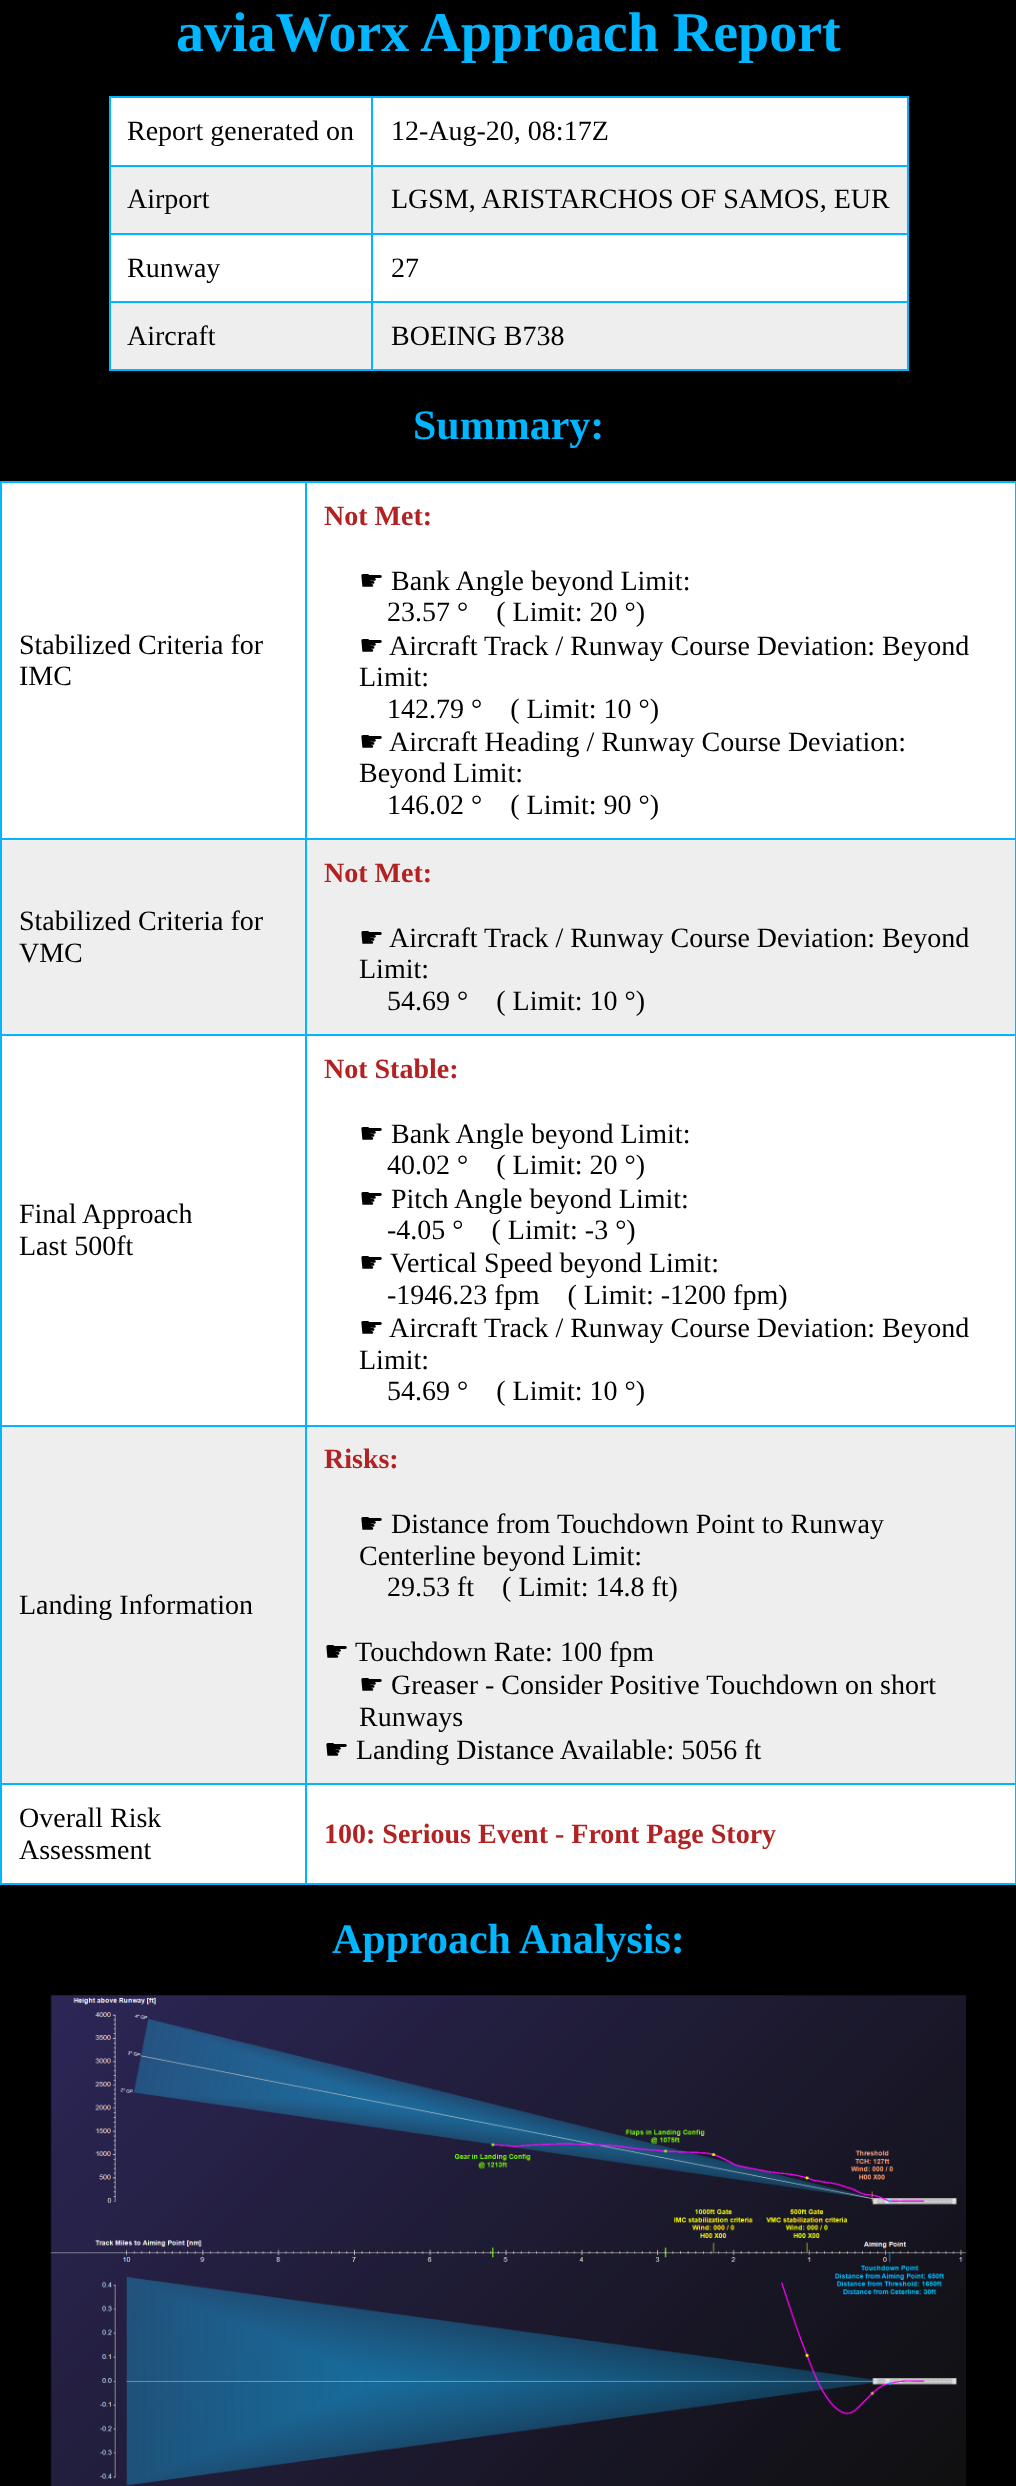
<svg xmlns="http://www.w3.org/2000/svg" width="1016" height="2486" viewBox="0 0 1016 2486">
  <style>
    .t1 { font: bold 56px Liberation Serif; fill: #01b5ff; }
    .t2 { font: 28px Liberation Serif; fill: #000; }
    .t3 { font: bold 42px Liberation Serif; fill: #01b5ff; }
    .t4 { font: bold 28px Liberation Serif; fill: #b22222; }
    .t5 { font: 28px DejaVu Sans; fill: #000; }
  </style>
  <rect width="100%" height="100%" fill="#000"/>
  <text x="176" y="51" class="t1">aviaWorx Approach Report</text>
  <rect x="111" y="98" width="796" height="67" fill="#fff"/>
  <rect x="371" y="96" width="537" height="2" fill="#01b5ff"/>
  <rect x="371" y="165" width="537" height="2" fill="#01b5ff"/>
  <rect x="111" y="167" width="796" height="66" fill="#eee"/>
  <rect x="371" y="233" width="537" height="2" fill="#01b5ff"/>
  <rect x="111" y="235" width="796" height="66" fill="#fff"/>
  <rect x="371" y="301" width="537" height="2" fill="#01b5ff"/>
  <rect x="111" y="303" width="796" height="66" fill="#eee"/>
  <rect x="907" y="301" width="2" height="70" fill="#01b5ff"/>
  <rect x="371" y="369" width="537" height="2" fill="#01b5ff"/>
  <rect x="371" y="301" width="2" height="70" fill="#01b5ff"/>
  <rect x="109" y="301" width="264" height="2" fill="#01b5ff"/>
  <rect x="371" y="233" width="2" height="70" fill="#01b5ff"/>
  <rect x="109" y="233" width="264" height="2" fill="#01b5ff"/>
  <rect x="371" y="165" width="2" height="70" fill="#01b5ff"/>
  <rect x="109" y="165" width="264" height="2" fill="#01b5ff"/>
  <rect x="371" y="96" width="2" height="70" fill="#01b5ff"/>
  <rect x="109" y="96" width="264" height="2" fill="#01b5ff"/>
  <rect x="109" y="369" width="264" height="2" fill="#01b5ff"/>
  <rect x="109" y="301" width="2" height="70" fill="#01b5ff"/>
  <rect x="109" y="233" width="2" height="70" fill="#01b5ff"/>
  <rect x="109" y="165" width="2" height="70" fill="#01b5ff"/>
  <rect x="109" y="96" width="2" height="70" fill="#01b5ff"/>
  <text x="127" y="140" class="t2">Report generated on</text>
  <rect x="907" y="233" width="2" height="70" fill="#01b5ff"/>
  <rect x="907" y="165" width="2" height="70" fill="#01b5ff"/>
  <rect x="907" y="96" width="2" height="70" fill="#01b5ff"/>
  <text x="391" y="140" class="t2">12-Aug-20, 08:17Z</text>
  <text x="127" y="208" class="t2">Airport</text>
  <text x="391" y="208" class="t2">LGSM, ARISTARCHOS OF SAMOS, EUR</text>
  <text x="127" y="277" class="t2">Runway</text>
  <text x="391" y="277" class="t2">27</text>
  <text x="127" y="345" class="t2">Aircraft</text>
  <text x="391" y="345" class="t2">BOEING B738</text>
  <text x="413" y="439" class="t3">Summary:</text>
  <rect x="2" y="483" width="1013" height="355" fill="#fff"/>
  <rect x="305" y="481" width="711" height="2" fill="#01b5ff"/>
  <rect x="305" y="838" width="711" height="2" fill="#01b5ff"/>
  <rect x="2" y="840" width="1013" height="194" fill="#eee"/>
  <rect x="305" y="1034" width="711" height="2" fill="#01b5ff"/>
  <rect x="2" y="1036" width="1013" height="389" fill="#fff"/>
  <rect x="305" y="1425" width="711" height="2" fill="#01b5ff"/>
  <rect x="2" y="1427" width="1013" height="356" fill="#eee"/>
  <rect x="305" y="1783" width="711" height="2" fill="#01b5ff"/>
  <rect x="2" y="1785" width="1013" height="98" fill="#fff"/>
  <rect x="1015" y="1783" width="1" height="102" fill="#01b5ff"/>
  <rect x="305" y="1883" width="711" height="2" fill="#01b5ff"/>
  <rect x="305" y="1783" width="2" height="102" fill="#01b5ff"/>
  <rect x="0" y="1783" width="306" height="2" fill="#01b5ff"/>
  <rect x="305" y="1425" width="2" height="360" fill="#01b5ff"/>
  <rect x="0" y="1425" width="306" height="2" fill="#01b5ff"/>
  <rect x="305" y="1034" width="2" height="392" fill="#01b5ff"/>
  <rect x="0" y="1034" width="306" height="2" fill="#01b5ff"/>
  <rect x="305" y="838" width="2" height="198" fill="#01b5ff"/>
  <rect x="0" y="838" width="306" height="2" fill="#01b5ff"/>
  <rect x="305" y="481" width="2" height="359" fill="#01b5ff"/>
  <rect x="0" y="481" width="306" height="2" fill="#01b5ff"/>
  <rect x="0" y="1883" width="306" height="2" fill="#01b5ff"/>
  <rect x="0" y="1783" width="2" height="102" fill="#01b5ff"/>
  <rect x="0" y="1425" width="2" height="360" fill="#01b5ff"/>
  <rect x="0" y="1034" width="2" height="392" fill="#01b5ff"/>
  <rect x="0" y="838" width="2" height="198" fill="#01b5ff"/>
  <rect x="0" y="481" width="2" height="359" fill="#01b5ff"/>
  <text x="19" y="654" class="t2">Stabilized Criteria for</text>
  <text x="19" y="685" class="t2">IMC</text>
  <rect x="1015" y="1425" width="1" height="360" fill="#01b5ff"/>
  <rect x="1015" y="1034" width="1" height="392" fill="#01b5ff"/>
  <rect x="1015" y="838" width="1" height="198" fill="#01b5ff"/>
  <rect x="1015" y="481" width="1" height="359" fill="#01b5ff"/>
  <text x="324" y="525" class="t4">Not Met:</text>
  <text x="359" y="590" class="t5">☛</text>
  <text x="391" y="590" class="t2">Bank Angle beyond Limit:</text>
  <text x="387" y="621" class="t2">23.57 ° ( Limit: 20 °)</text>
  <text x="359" y="655" class="t5">☛</text>
  <text x="389" y="655" class="t2">Aircraft Track / Runway Course Deviation: Beyond</text>
  <text x="359" y="686" class="t2">Limit:</text>
  <text x="387" y="718" class="t2">142.79 ° ( Limit: 10 °)</text>
  <text x="359" y="751" class="t5">☛</text>
  <text x="389" y="751" class="t2">Aircraft Heading / Runway Course Deviation:</text>
  <text x="359" y="782" class="t2">Beyond Limit:</text>
  <text x="387" y="814" class="t2">146.02 ° ( Limit: 90 °)</text>
  <text x="19" y="930" class="t2">Stabilized Criteria for</text>
  <text x="19" y="962" class="t2">VMC</text>
  <text x="324" y="882" class="t4">Not Met:</text>
  <text x="359" y="947" class="t5">☛</text>
  <text x="389" y="947" class="t2">Aircraft Track / Runway Course Deviation: Beyond</text>
  <text x="359" y="978" class="t2">Limit:</text>
  <text x="387" y="1010" class="t2">54.69 ° ( Limit: 10 °)</text>
  <text x="19" y="1223" class="t2">Final Approach</text>
  <text x="19" y="1255" class="t2">Last 500ft</text>
  <text x="324" y="1078" class="t4">Not Stable:</text>
  <text x="359" y="1143" class="t5">☛</text>
  <text x="391" y="1143" class="t2">Bank Angle beyond Limit:</text>
  <text x="387" y="1174" class="t2">40.02 ° ( Limit: 20 °)</text>
  <text x="359" y="1208" class="t5">☛</text>
  <text x="391" y="1208" class="t2">Pitch Angle beyond Limit:</text>
  <text x="387" y="1239" class="t2">-4.05 ° ( Limit: -3 °)</text>
  <text x="359" y="1272" class="t5">☛</text>
  <text x="390" y="1272" class="t2">Vertical Speed beyond Limit:</text>
  <text x="387" y="1304" class="t2">-1946.23 fpm ( Limit: -1200 fpm)</text>
  <text x="359" y="1337" class="t5">☛</text>
  <text x="389" y="1337" class="t2">Aircraft Track / Runway Course Deviation: Beyond</text>
  <text x="359" y="1369" class="t2">Limit:</text>
  <text x="387" y="1400" class="t2">54.69 ° ( Limit: 10 °)</text>
  <text x="19" y="1614" class="t2">Landing Information</text>
  <text x="324" y="1468" class="t4">Risks:</text>
  <text x="359" y="1533" class="t5">☛</text>
  <text x="391" y="1533" class="t2">Distance from Touchdown Point to Runway</text>
  <text x="359" y="1565" class="t2">Centerline beyond Limit:</text>
  <text x="387" y="1596" class="t2">29.53 ft ( Limit: 14.8 ft)</text>
  <text x="324" y="1661" class="t5">☛</text>
  <text x="355" y="1661" class="t2">Touchdown Rate: 100 fpm</text>
  <text x="359" y="1694" class="t5">☛</text>
  <text x="391" y="1694" class="t2">Greaser - Consider Positive Touchdown on short</text>
  <text x="359" y="1726" class="t2">Runways</text>
  <text x="324" y="1759" class="t5">☛</text>
  <text x="356" y="1759" class="t2">Landing Distance Available: 5056 ft</text>
  <text x="19" y="1827" class="t2">Overall Risk</text>
  <text x="19" y="1859" class="t2">Assessment</text>
  <text x="324" y="1843" class="t4">100: Serious Event - Front Page Story</text>
  <text x="332" y="1953" class="t3">Approach Analysis:</text>
  <image x="50" y="1995" width="916" height="491" href="images/1.png"/>
</svg>
